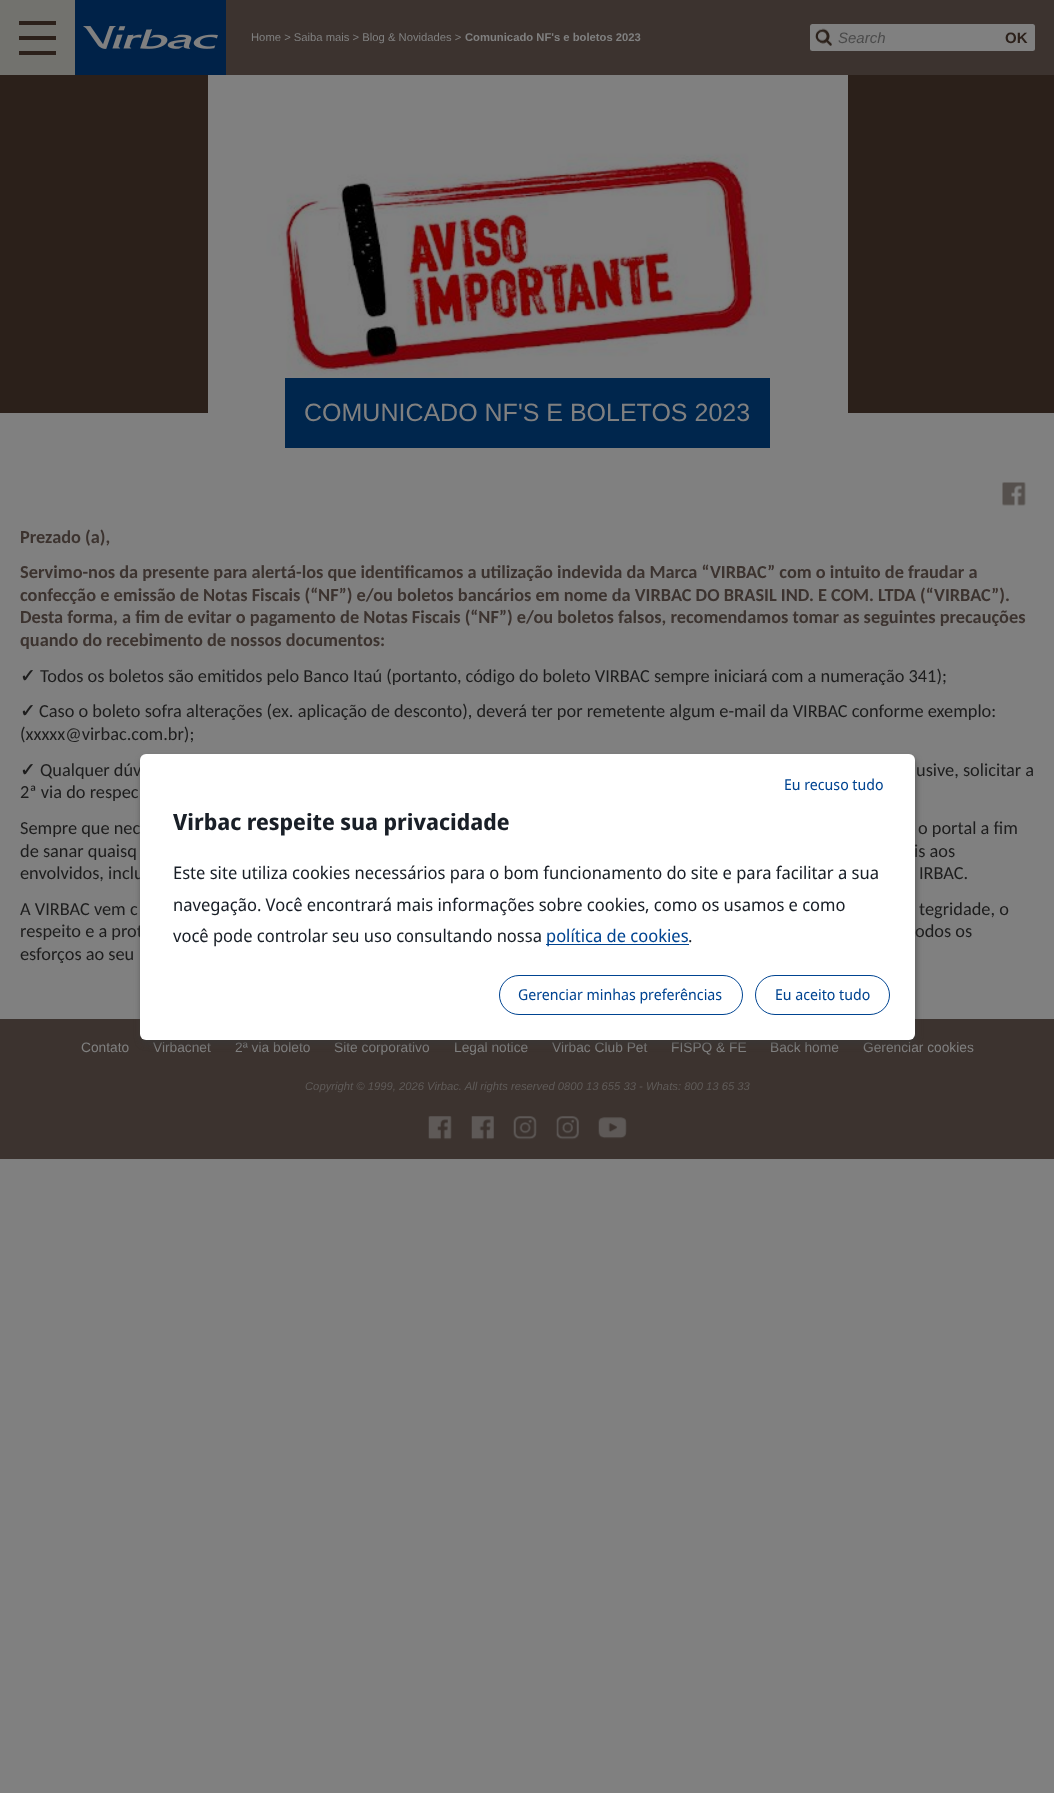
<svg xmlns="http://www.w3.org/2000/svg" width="1054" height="1793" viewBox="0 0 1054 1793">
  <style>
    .t1 { font: 11.25px Liberation Sans; fill: #808080; }
    .t2 { font: bold 11.25px Liberation Sans; fill: #808080; }
    .t3 { font: italic 15px Liberation Sans; fill: #4a4a4a; }
    .t4 { font: bold 15px Liberation Sans; fill: #2b201a; }
    .t5 { font: 25px Liberation Sans; fill: #808080; }
    .t6 { font: bold 18.33px Carlito; fill: #3c332f; }
    .t7 { font: bold 18.33px DejaVu Sans; fill: #1d1d1d; }
    .t8 { font: 18.33px Carlito; fill: #1d1d1d; }
    .t9 { font: 13.75px Liberation Sans; fill: #808080; }
    .t10 { font: italic 11.25px Liberation Sans; fill: #5e5a58; }
    .t11 { font: 15px Noto Sans Display; fill: #004491; }
    .t12 { font: bold 22.5px Noto Sans Display; fill: #191f27; }
    .t13 { font: 17.5px Noto Sans Display; fill: #191f27; }
    .t14 { font: 17.5px Noto Sans Display; fill: #004491; }
  </style>
  <rect width="100%" height="100%" fill="#808080"/>
  <rect x="0" y="0" width="75" height="75" fill="#72726e"/>
  <rect x="19" y="36" width="37" height="4" fill="#2b201a"/>
  <rect x="19" y="21" width="37" height="4" fill="#2b201a"/>
  <rect x="19" y="51" width="37" height="4" fill="#2b201a"/>
  <image x="75" y="0" width="151" height="75" href="images/1.png"/>
  <rect x="226" y="0" width="828" height="75" fill="#3c332f"/>
  <text x="251" y="41" class="t1">Home &gt; Saiba mais &gt; Blog &amp; Novidades &gt;</text>
  <text x="465" y="41" class="t2">Comunicado NF's e boletos 2023</text>
  <rect x="810" y="24" width="225" height="27" rx="2.5" fill="#808080"/>
  <image x="815" y="28" width="17" height="18" href="images/2.png"/>
  <text x="838" y="43" class="t3">Search</text>
  <text x="1005" y="43" class="t4">OK</text>
  <rect x="0" y="75" width="1054" height="338" fill="#2b201a"/>
  <image x="208" y="75" width="640" height="338" href="images/3.png"/>
  <rect x="285" y="378" width="485" height="70" fill="#00264d"/>
  <text x="304" y="421" class="t5">COMUNICADO NF'S E BOLETOS 2023</text>
  <image x="1002" y="482" width="24" height="24" href="images/4.png"/>
  <text x="20" y="543" class="t6">Prezado (a),</text>
  <text x="20" y="578" class="t6">Servimo-nos da presente para alertá-los que identificamos a utilização indevida da Marca “VIRBAC” com o intuito de fraudar a</text>
  <text x="20" y="601" class="t6">confecção e emissão de Notas Fiscais (“NF”) e/ou boletos bancários em nome da VIRBAC DO BRASIL IND. E COM. LTDA (“VIRBAC”).</text>
  <text x="20" y="623" class="t6">Desta forma, a fim de evitar o pagamento de Notas Fiscais (“NF”) e/ou boletos falsos, recomendamos tomar as seguintes precauções</text>
  <text x="20" y="646" class="t6">quando do recebimento de nossos documentos:</text>
  <text x="20" y="682" class="t7">✓</text>
  <text x="40" y="682" class="t8">Todos os boletos são emitidos pelo Banco Itaú (portanto, código do boleto VIRBAC sempre iniciará com a numeração 341);</text>
  <text x="20" y="717" class="t7">✓</text>
  <text x="39" y="717" class="t8">Caso o boleto sofra alterações (ex. aplicação de desconto), deverá ter por remetente algum e-mail da VIRBAC conforme exemplo:</text>
  <text x="20" y="740" class="t8">(xxxxx@virbac.com.br);</text>
  <text x="20" y="776" class="t7">✓</text>
  <text x="40" y="776" class="t8">Qualquer dúv</text>
  <text x="916" y="776" class="t8">usive, solicitar a</text>
  <text x="20" y="798" class="t8">2ª via do respec</text>
  <text x="20" y="834" class="t8">Sempre que nec</text>
  <text x="918" y="834" class="t8">o portal a fim</text>
  <text x="20" y="857" class="t8">de sanar quaisq</text>
  <text x="914" y="857" class="t8">is aos</text>
  <text x="20" y="879" class="t8">envolvidos, inclu</text>
  <text x="919" y="879" class="t8">IRBAC.</text>
  <text x="20" y="915" class="t8">A VIRBAC vem c</text>
  <text x="919" y="915" class="t8">tegridade, o</text>
  <text x="20" y="937" class="t8">respeito e a prot</text>
  <text x="915" y="937" class="t8">odos os</text>
  <text x="20" y="960" class="t8">esforços ao seu</text>
  <rect x="0" y="1019" width="1054" height="140" fill="#3c332f"/>
  <text x="81" y="1052" class="t9">Contato</text>
  <text x="153" y="1052" class="t9">Virbacnet</text>
  <text x="235" y="1052" class="t9">2ª via boleto</text>
  <text x="334" y="1052" class="t9">Site corporativo</text>
  <text x="454" y="1052" class="t9">Legal notice</text>
  <text x="552" y="1052" class="t9">Virbac Club Pet</text>
  <text x="671" y="1052" class="t9">FISPQ &amp; FE</text>
  <text x="770" y="1052" class="t9">Back home</text>
  <text x="863" y="1052" class="t9">Gerenciar cookies</text>
  <text x="305" y="1090" class="t10">Copyright © 1999, 2026 Virbac. All rights reserved 0800 13 655 33 - Whats: 800 13 65 33</text>
  <image x="428" y="1116" width="24" height="24" href="images/5.png"/>
  <image x="471" y="1116" width="23" height="24" href="images/6.png"/>
  <image x="513" y="1116" width="24" height="24" href="images/7.png"/>
  <image x="556" y="1116" width="23" height="24" href="images/8.png"/>
  <image x="598" y="1117" width="29" height="22" href="images/9.png"/>
  <rect x="141" y="758" width="775" height="286" rx="6" fill="#38383899" filter="blur(3px)"/>
  <rect x="140" y="754" width="775" height="286" rx="6" fill="#fff"/>
  <text x="784" y="790" class="t11">Eu recuso tudo</text>
  <rect x="499.5" y="975.5" width="243" height="39" rx="19.5" fill="none" stroke="#004491"/>
  <text x="518" y="1000" class="t11">Gerenciar minhas preferências</text>
  <rect x="755.5" y="975.5" width="134" height="39" rx="19.5" fill="none" stroke="#004491"/>
  <text x="775" y="1000" class="t11">Eu aceito tudo</text>
  <text x="173" y="830" class="t12">Virbac respeite sua privacidade</text>
  <text x="173" y="879" class="t13">Este site utiliza cookies necessários para o bom funcionamento do site e para facilitar a sua</text>
  <text x="173" y="911" class="t13">navegação. Você encontrará mais informações sobre cookies, como os usamos e como</text>
  <text x="173" y="942" class="t13">você pode controlar seu uso consultando nossa</text>
  <rect x="546" y="944" width="143" height="1" fill="#004491"/>
  <text x="546" y="942" class="t14">política de cookies</text>
  <text x="688" y="942" class="t13">.</text>
</svg>
